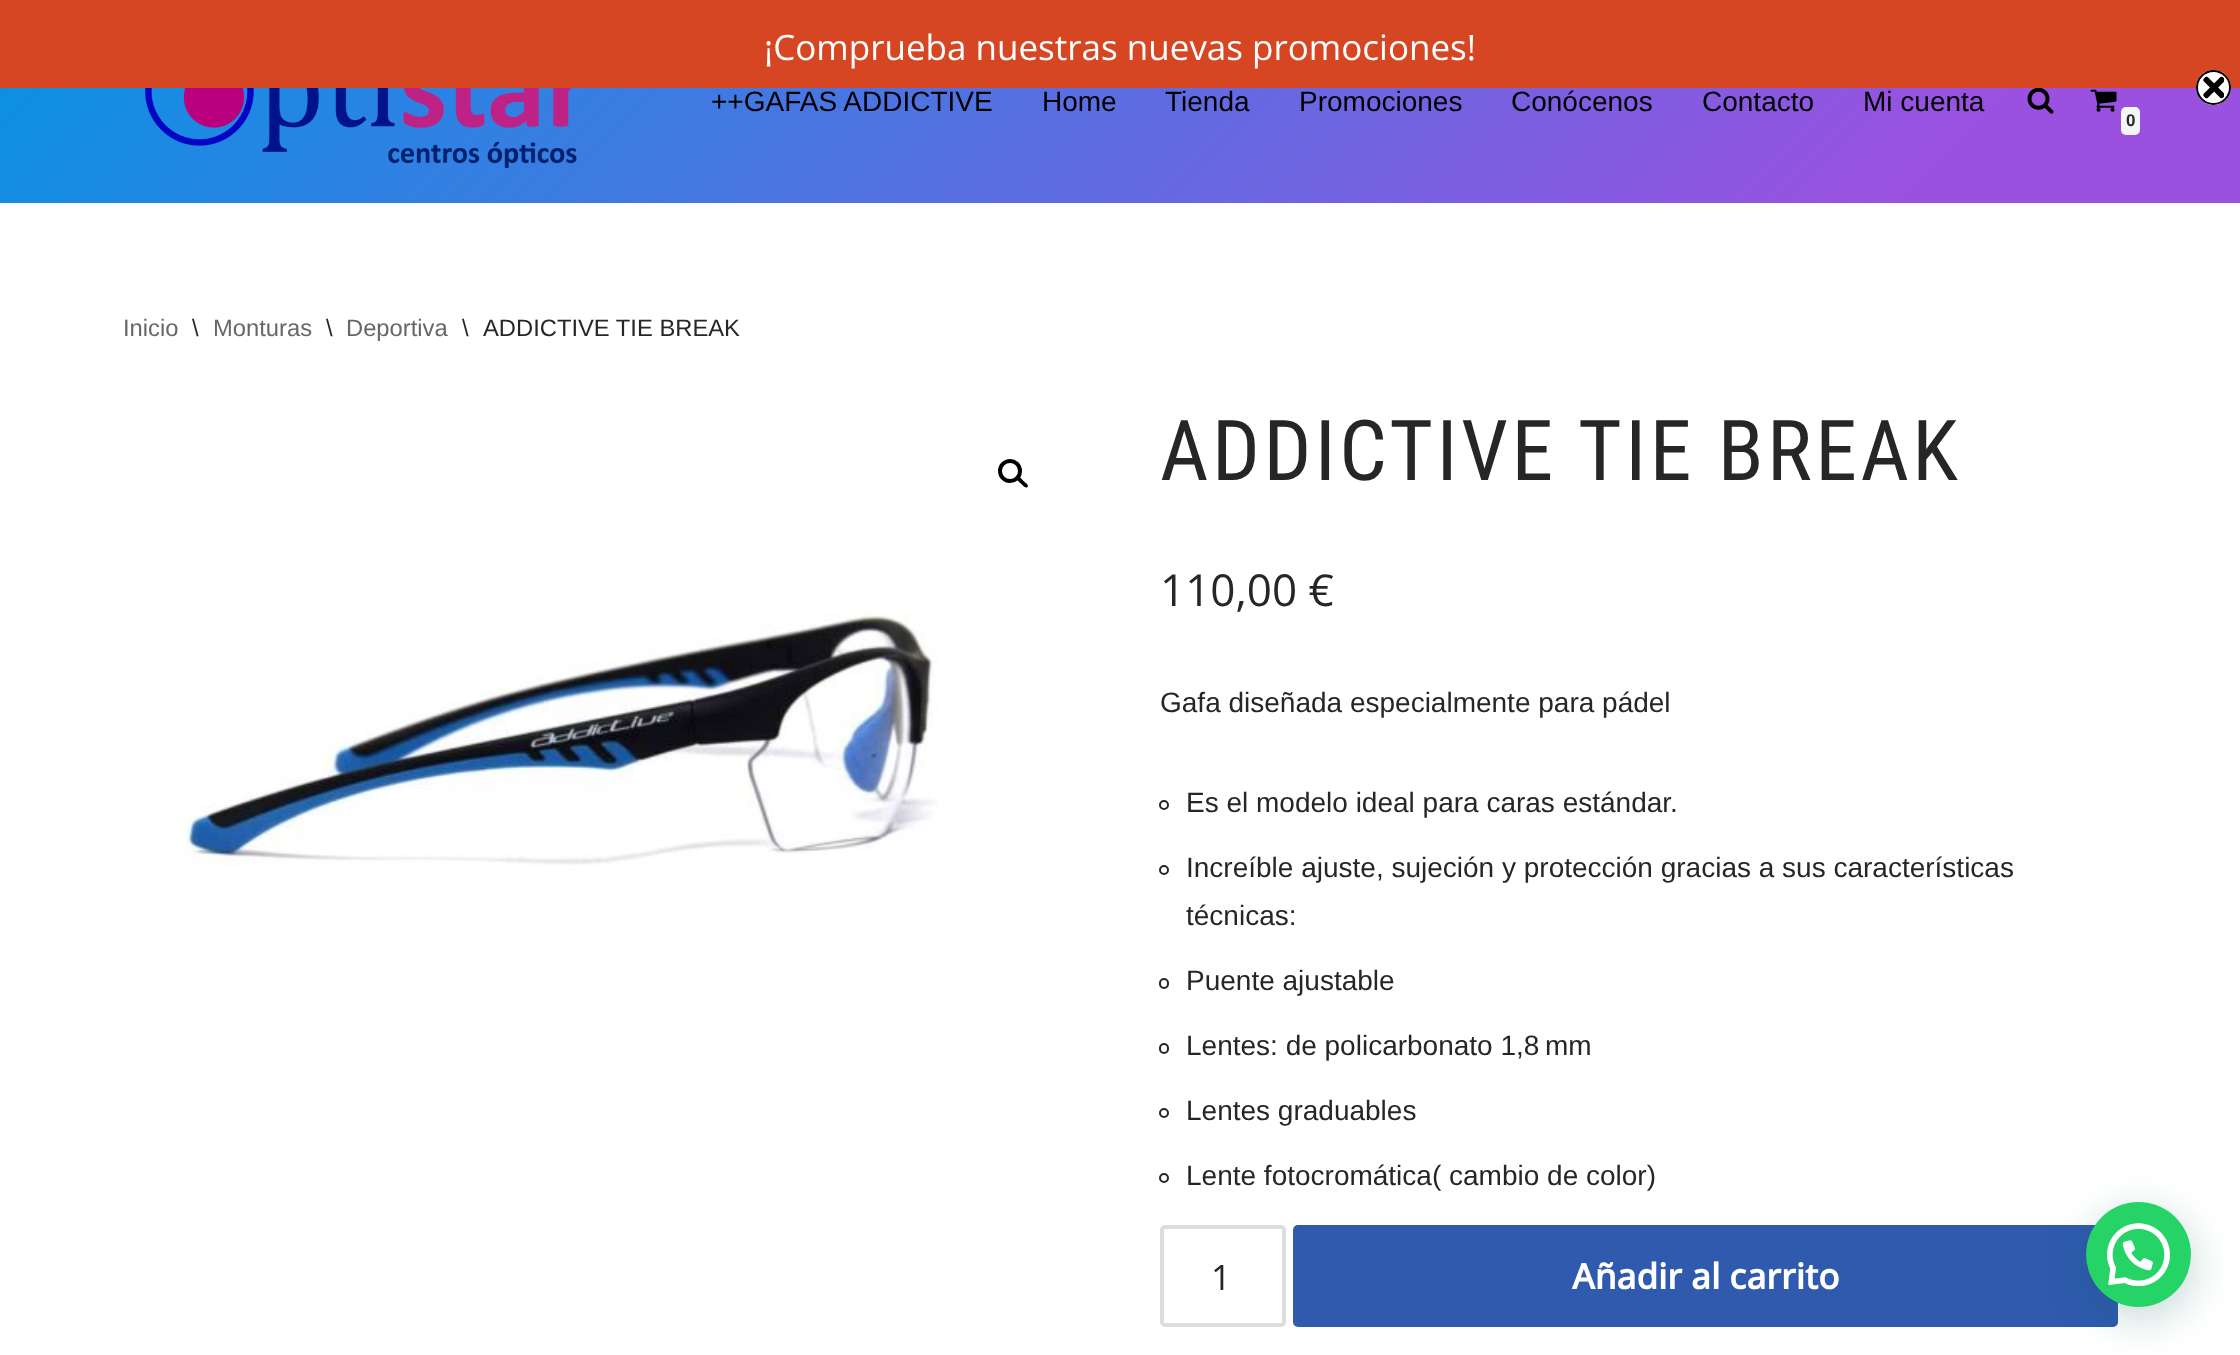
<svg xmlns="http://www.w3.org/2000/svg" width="2240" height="1355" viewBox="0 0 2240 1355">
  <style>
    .t1 { font: 35px Open Sans; fill: #fff; }
    .t2 { font: 28px Liberation Sans; fill: #000; }
    .t3 { font: bold 17px Liberation Sans; fill: #272626; }
    .t4 { font: 23.75px Liberation Sans; fill: #676767; }
    .t5 { font: 23.75px Liberation Sans; fill: #272626; }
    .t6 { font: 84px Roboto Condensed; letter-spacing: 3.5px; fill: #272626; }
    .t7 { font: 44px Open Sans; fill: #272626; }
    .t8 { font: 28px Liberation Sans; fill: #272626; }
    .t9 { font: 35px Open Sans; fill: #272626; }
    .t10 { font: bold 35px Open Sans; fill: #fff; }
  </style>
  <defs>
    <linearGradient id="g1" gradientUnits="userSpaceOnUse" x1="509" y1="-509" x2="1731" y2="712"><stop offset="0" stop-color="#0693e3"/><stop offset="0.86" stop-color="#9b51e0"/></linearGradient>
  </defs>
  <rect width="100%" height="100%" fill="#fff"/>
  <rect x="0" y="0" width="2240" height="88" fill="#d64622"/>
  <text x="764" y="60" class="t1">¡Comprueba nuestras nuevas promociones!</text>
  <rect x="0" y="88" width="2240" height="115" fill="url(#g1)"/>
  <circle cx="2213.5" cy="87.5" r="17.5" fill="#fff"/>
  <image x="2203" y="76" width="21" height="23" href="images/1.png"/>
  <circle cx="2213.5" cy="87.5" r="16.5" fill="none" stroke="#000" stroke-width="2"/>
  <image x="145" y="88" width="432" height="81" href="images/2.png"/>
  <text x="711" y="111" class="t2">++GAFAS ADDICTIVE</text>
  <text x="1042" y="111" class="t2">Home</text>
  <text x="1165" y="111" class="t2">Tienda</text>
  <text x="1299" y="111" class="t2">Promociones</text>
  <text x="1511" y="111" class="t2">Conócenos</text>
  <text x="1702" y="111" class="t2">Contacto</text>
  <text x="1863" y="111" class="t2">Mi cuenta</text>
  <image x="2027" y="88" width="27" height="26" href="images/3.png"/>
  <image x="2090" y="89" width="27" height="23" href="images/4.png"/>
  <rect x="2121" y="107" width="19" height="28" rx="5" fill="#f4f5f7"/>
  <text x="2126" y="126" class="t3">0</text>
  <text x="123" y="336" class="t4">Inicio</text>
  <text x="192" y="336" class="t5">\</text>
  <text x="213" y="336" class="t4">Monturas</text>
  <text x="326" y="336" class="t5">\</text>
  <text x="346" y="336" class="t4">Deportiva</text>
  <text x="462" y="336" class="t5">\</text>
  <text x="483" y="336" class="t5">ADDICTIVE TIE BREAK</text>
  <circle cx="1010" cy="471" r="10" fill="none" stroke="#000" stroke-width="4"/>
  <path d="M1017.5 477.5C1019.5 475.5 1022.5 480 1023.5 481C1024.5 482 1029.5 485 1027.5 487C1025.5 489 1022 484.5 1021 483.5C1020 482.5 1015.5 479.5 1017.5 477.5Z" fill="#000"/>
  <image x="174" y="611" width="765" height="256" href="images/5.png"/>
  <text x="1160" y="480" class="t6">ADDICTIVE TIE BREAK</text>
  <text x="1160" y="606" class="t7">110,00 €</text>
  <text x="1160" y="712" class="t8">Gafa diseñada especialmente para pádel</text>
  <circle cx="1164" cy="805" r="4" fill="none" stroke="#272626" stroke-width="2"/>
  <text x="1186" y="812" class="t8">Es el modelo ideal para caras estándar.</text>
  <circle cx="1164" cy="870" r="4" fill="none" stroke="#272626" stroke-width="2"/>
  <text x="1186" y="877" class="t8">Increíble ajuste, sujeción y protección gracias a sus características</text>
  <text x="1186" y="925" class="t8">técnicas:</text>
  <rect x="1160" y="979" width="8" height="9" rx="4" fill="none" stroke="#272626" stroke-width="2"/>
  <text x="1186" y="990" class="t8">Puente ajustable</text>
  <rect x="1160" y="1044" width="8" height="9" rx="4" fill="none" stroke="#272626" stroke-width="2"/>
  <text x="1186" y="1055" class="t8">Lentes: de policarbonato 1,8 mm</text>
  <circle cx="1164" cy="1113" r="4" fill="none" stroke="#272626" stroke-width="2"/>
  <text x="1186" y="1120" class="t8">Lentes graduables</text>
  <circle cx="1164" cy="1178" r="4" fill="none" stroke="#272626" stroke-width="2"/>
  <text x="1186" y="1185" class="t8">Lente fotocromática( cambio de color)</text>
  <rect x="1162" y="1227" width="122" height="98" rx="3" fill="none" stroke="#ddd" stroke-width="4"/>
  <text x="1211" y="1290" class="t9">1</text>
  <rect x="1293" y="1225" width="825" height="102" rx="5" fill="#2f5aae"/>
  <text x="1572" y="1289" class="t10">Añadir al carrito</text>
  <rect x="2088" y="1213" width="105" height="105" rx="52.5" fill="#075e543d" filter="blur(21px)"/>
  <circle cx="2138.5" cy="1254.5" r="52.5" fill="#25d366"/>
  <image x="2107" y="1223" width="63" height="63" href="images/6.png"/>
</svg>
